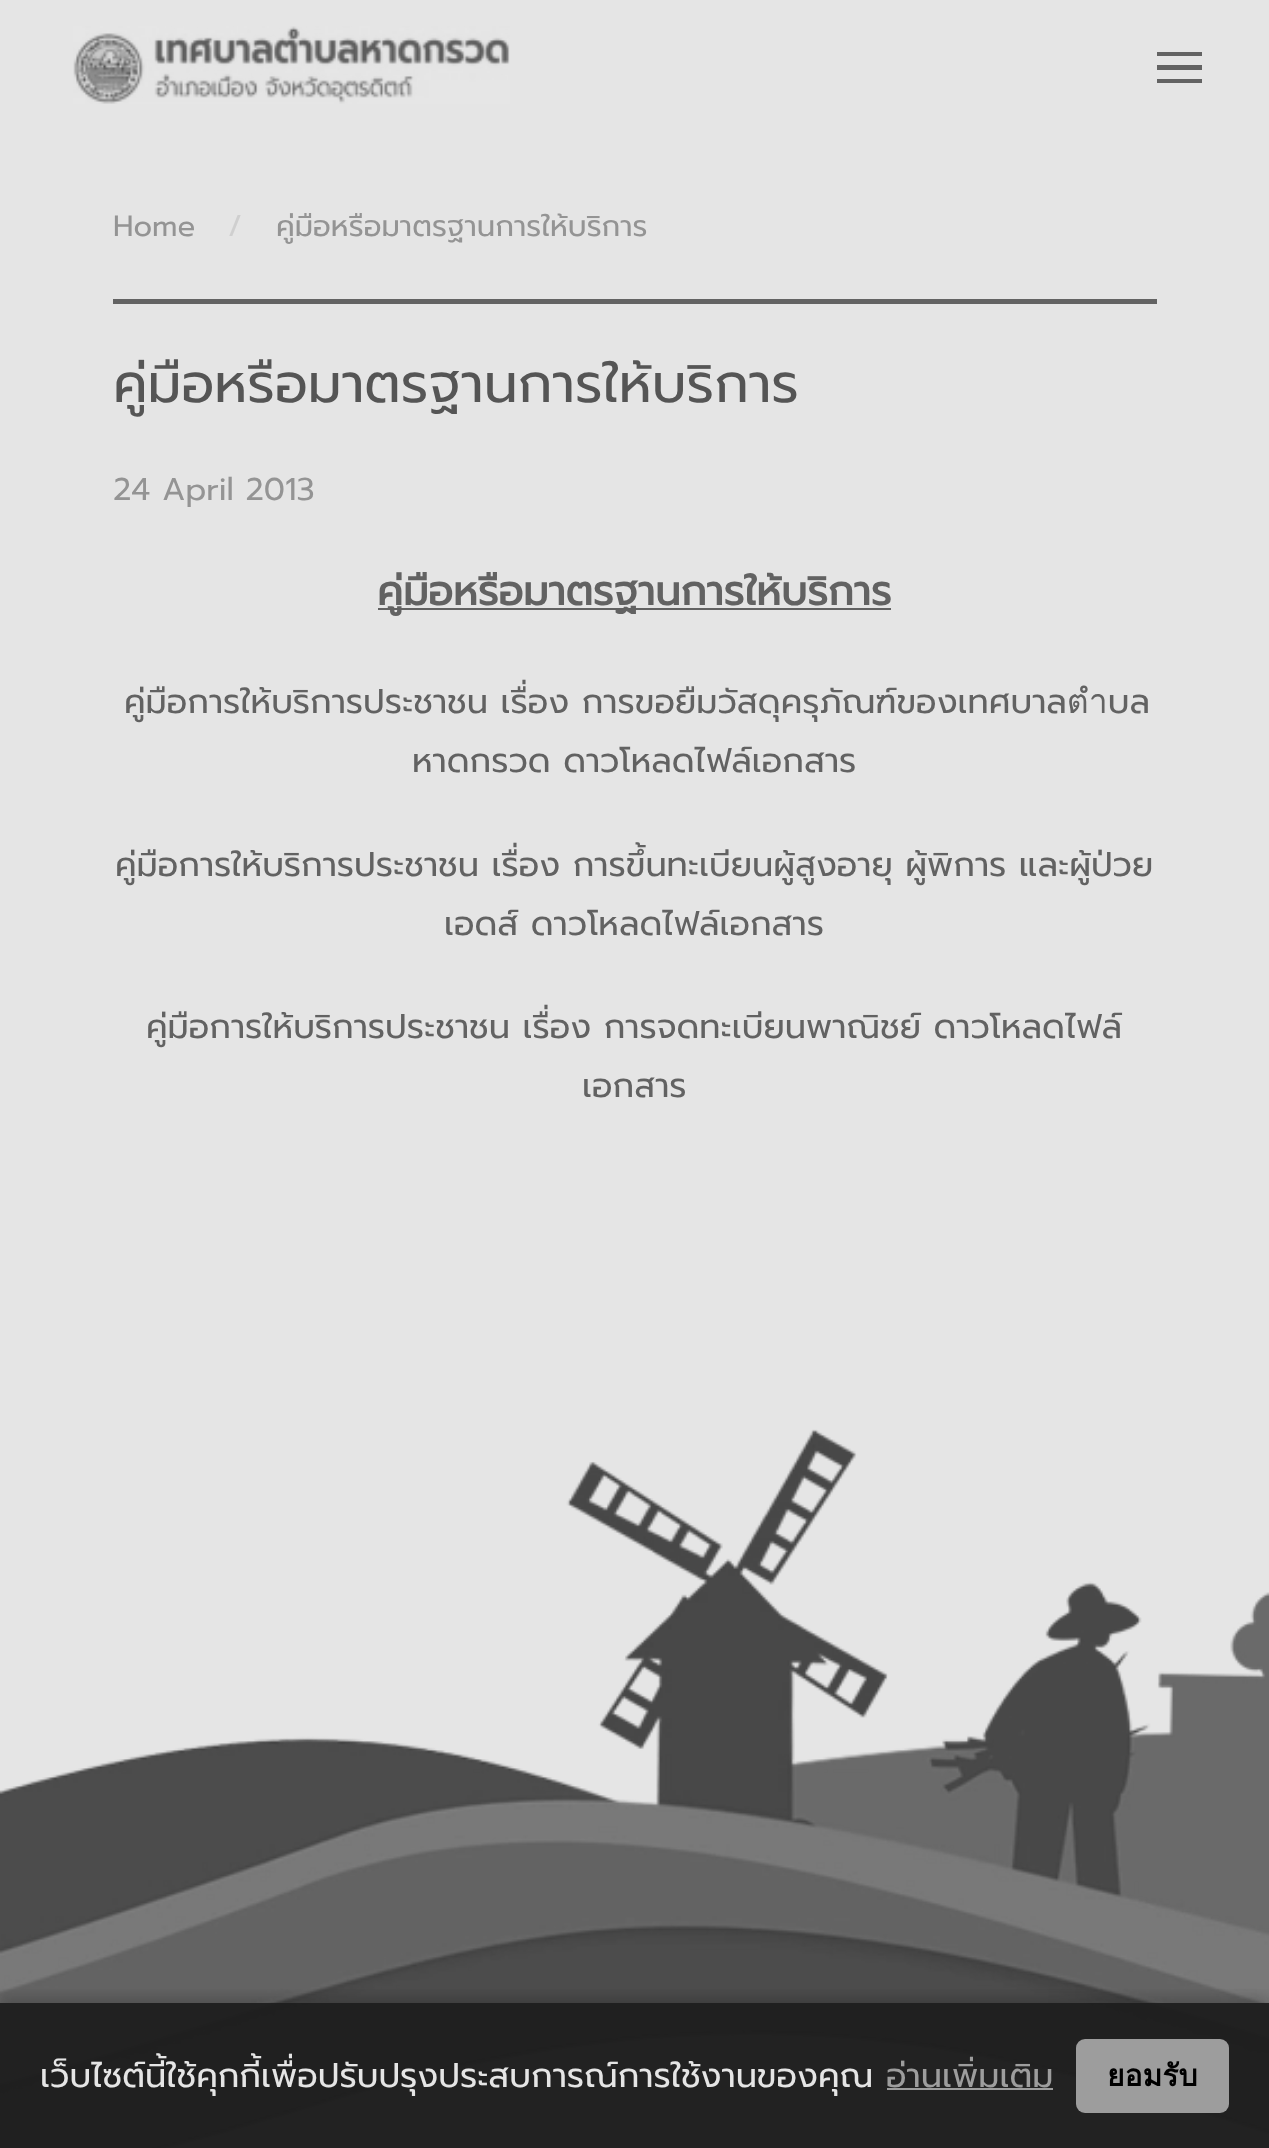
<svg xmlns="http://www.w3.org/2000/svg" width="1269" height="2148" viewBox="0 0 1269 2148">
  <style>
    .t1 { font: 29.25px Prompt; fill: #949494; }
    .t2 { font: 29.25px Prompt; fill: #cfcfcf; }
    .t3 { font: 54px Prompt; fill: #555; }
    .t4 { font: 31.5px Prompt; fill: #949494; }
    .t5 { font: bold 40.5px Prompt; fill: #626262; }
    .t6 { font: 33.75px Prompt; fill: #626262; }
    .t7 { font: 33.75px Prompt; fill: #e5e5e5; }
    .t8 { font: 33.75px Prompt; fill: #9d9d9d; }
    .t9 { font: bold 30px Loma; fill: #000; }
  </style>
  <defs>
    <clipPath id="clip1"><rect x="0" y="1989" width="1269" height="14"/></clipPath>
  </defs>
  <rect width="100%" height="100%" fill="#e5e5e5"/>
  <image x="73" y="26" width="437" height="78" href="images/1.png"/>
  <rect x="1157" y="52" width="45" height="4" fill="#636363"/>
  <rect x="1157" y="65" width="45" height="5" fill="#636363"/>
  <rect x="1157" y="79" width="45" height="4" fill="#636363"/>
  <text x="113" y="236" class="t1">Home</text>
  <text x="228" y="236" class="t2">/</text>
  <text x="276" y="236" class="t1">คู่มือหรือมาตรฐานการให้บริการ</text>
  <rect x="113" y="299" width="1044" height="5" fill="#636363"/>
  <text x="113" y="402" class="t3">คู่มือหรือมาตรฐานการให้บริการ</text>
  <text x="113" y="500" class="t4">24 April 2013</text>
  <rect x="378" y="608" width="513" height="2" fill="#626262"/>
  <text x="377" y="605" class="t5">คู่มือหรือมาตรฐานการให้บริการ</text>
  <text x="124" y="713" class="t6">คู่มือการให้บริการประชาชน เรื่อง การขอยืมวัสดุครุภัณฑ์ของเทศบาลตำบล</text>
  <text x="412" y="772" class="t6">หาดกรวด ดาวโหลดไฟล์เอกสาร</text>
  <text x="115" y="876" class="t6">คู่มือการให้บริการประชาชน เรื่อง การขึ้นทะเบียนผู้สูงอายุ ผู้พิการ และผู้ป่วย</text>
  <text x="444" y="935" class="t6">เอดส์ ดาวโหลดไฟล์เอกสาร</text>
  <text x="146" y="1038" class="t6">คู่มือการให้บริการประชาชน เรื่อง การจดทะเบียนพาณิชย์ ดาวโหลดไฟล์</text>
  <text x="582" y="1097" class="t6">เอกสาร</text>
  <image x="0" y="1429" width="1269" height="719" href="images/2.png"/>
  <g clip-path="url(#clip1)">
    <rect x="0" y="1998" width="1269" height="146" fill="#00000033" filter="blur(7px)"/>
  </g>
  <rect x="0" y="2003" width="1269" height="145" fill="#1e1e1ef2"/>
  <text x="40" y="2087" class="t7">เว็บไซต์นี้ใช้คุกกี้เพื่อปรับปรุงประสบการณ์การใช้งานของคุณ</text>
  <text x="886" y="2087" class="t8">อ่านเพิ่มเติม</text>
  <rect x="887" y="2088" width="166" height="2" fill="#9d9d9d"/>
  <rect x="1076" y="2039" width="153" height="74" rx="9" fill="#9d9d9d"/>
  <text x="1107" y="2086" class="t9">ยอมรับ</text>
</svg>
